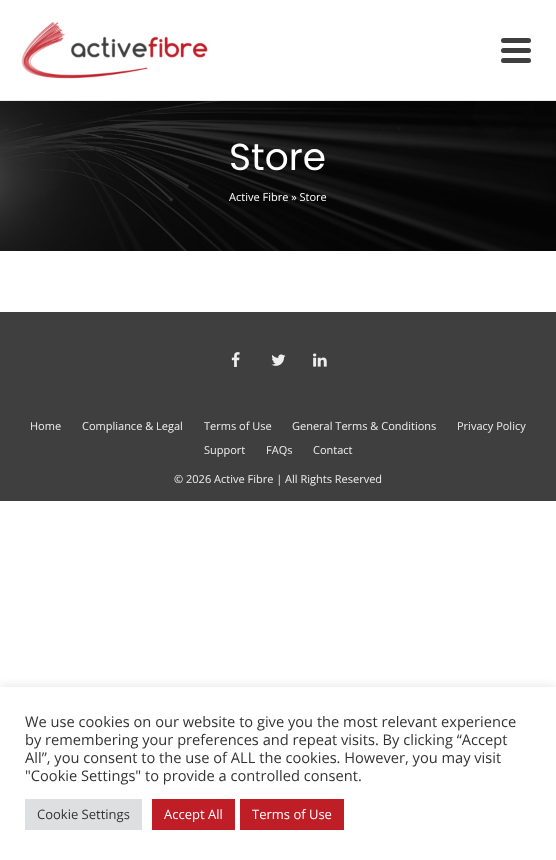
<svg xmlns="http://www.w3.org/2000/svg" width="556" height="860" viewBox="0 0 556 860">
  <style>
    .t1 { font: 37.5px Poppins; fill: #fff; }
    .t2 { font: 11px Open Sans; fill: #fff; }
    .t3 { font: 11px Open Sans; fill: #eee; }
    .t4 { font: 14.65px Open Sans; fill: #333; }
    .t5 { font: 13px Open Sans; fill: #333; }
    .t6 { font: 13px Open Sans; fill: #fff; }
  </style>
  <defs>
    <clipPath id="clip1"><rect x="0" y="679" width="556" height="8"/></clipPath>
  </defs>
  <rect width="100%" height="100%" fill="#fff"/>
  <image x="21" y="21" width="187" height="58" href="images/1.png"/>
  <rect x="501" y="38" width="30" height="5" rx="2.5" fill="#3f3f3f"/>
  <rect x="501" y="48" width="30" height="5" rx="2.5" fill="#3f3f3f"/>
  <rect x="501" y="58" width="30" height="5" rx="2.5" fill="#3f3f3f"/>
  <image x="0" y="101" width="556" height="150" href="images/2.png"/>
  <rect x="0" y="100" width="556" height="1" fill="#e9e9e9"/>
  <text x="229" y="170" class="t1">Store</text>
  <text x="229" y="201" class="t2">Active Fibre » Store</text>
  <rect x="0" y="312" width="556" height="189" fill="#3f3f3f"/>
  <image x="231" y="352" width="9" height="15" href="images/3.png"/>
  <image x="271" y="354" width="15" height="12" href="images/4.png"/>
  <image x="313" y="353" width="14" height="14" href="images/5.png"/>
  <text x="30" y="430" class="t3">Home</text>
  <text x="82" y="430" class="t3">Compliance &amp; Legal</text>
  <text x="204" y="430" class="t3">Terms of Use</text>
  <text x="292" y="430" class="t3">General Terms &amp; Conditions</text>
  <text x="457" y="430" class="t3">Privacy Policy</text>
  <text x="204" y="454" class="t3">Support</text>
  <text x="266" y="454" class="t3">FAQs</text>
  <text x="313" y="454" class="t3">Contact</text>
  <text x="174" y="483" class="t3">© 2026 Active Fibre | All Rights Reserved</text>
  <g clip-path="url(#clip1)">
    <rect x="0" y="686" width="556" height="173" fill="#acabab4d" filter="blur(5px)"/>
  </g>
  <text x="25" y="727" class="t4">We use cookies on our website to give you the most relevant experience</text>
  <text x="25" y="745" class="t4">by remembering your preferences and repeat visits. By clicking “Accept</text>
  <text x="25" y="763" class="t4">All”, you consent to the use of ALL the cookies. However, you may visit</text>
  <text x="25" y="781" class="t4">"Cookie Settings" to provide a controlled consent.</text>
  <rect x="25" y="799" width="117" height="31" fill="#dedfe0"/>
  <text x="37" y="819" class="t5">Cookie Settings</text>
  <rect x="152" y="799" width="83" height="31" fill="#bf1e27"/>
  <text x="164" y="819" class="t6">Accept All</text>
  <rect x="240" y="799" width="104" height="31" fill="#bf1e27"/>
  <text x="252" y="819" class="t6">Terms of Use</text>
</svg>
